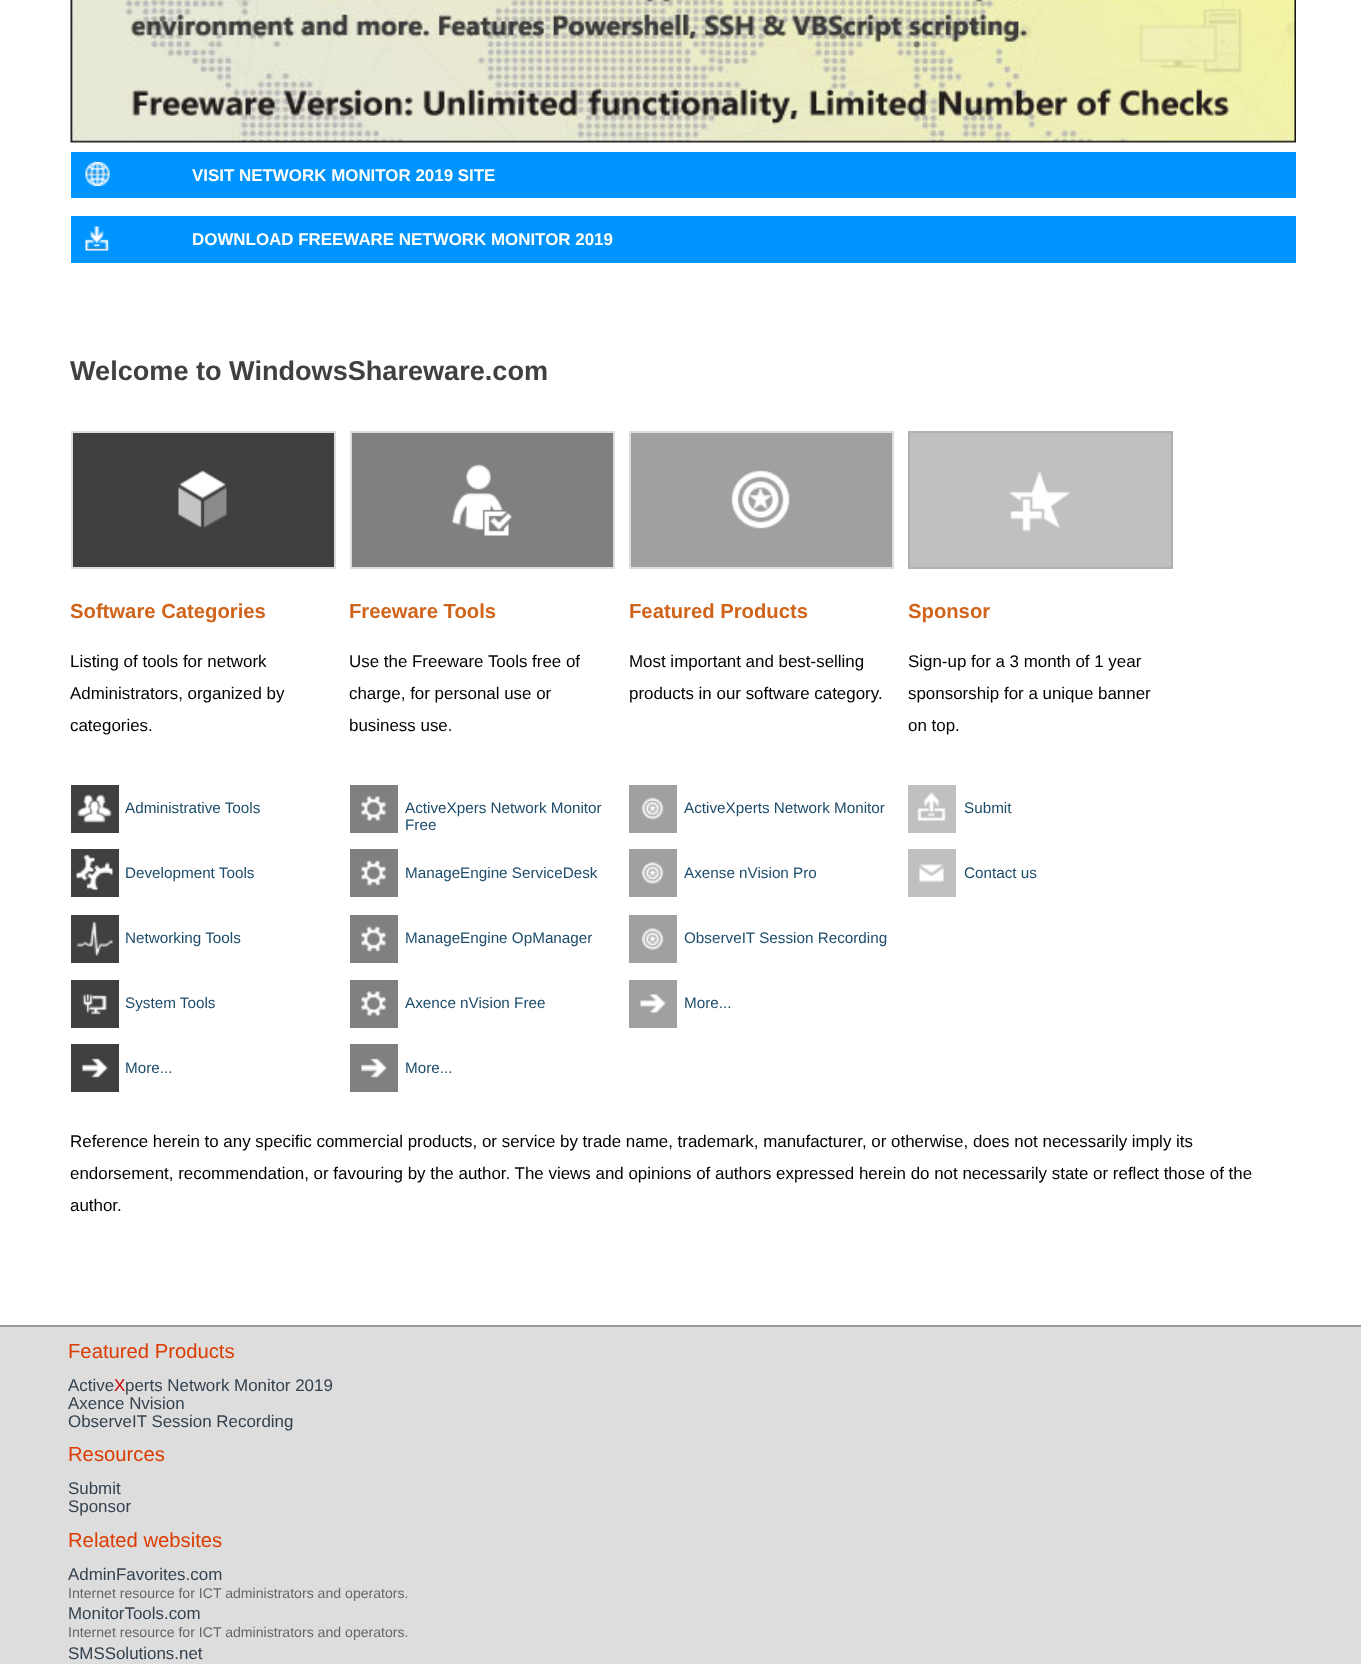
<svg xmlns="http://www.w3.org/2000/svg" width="1361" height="1664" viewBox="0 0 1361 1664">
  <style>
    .t1 { font: bold 16.93px Liberation Sans; fill: #fff; }
    .t2 { font: bold 27.1px Liberation Sans; fill: #404040; }
    .t3 { font: bold 20.25px Liberation Sans; fill: #cf641a; }
    .t4 { font: 16.93px Liberation Sans; fill: #000; }
    .t5 { font: 15.25px Liberation Sans; fill: #1d4c6b; }
    .t6 { font: 20.25px Liberation Sans; fill: #dc3c00; }
    .t7 { font: 16.93px Liberation Sans; fill: #34424f; }
    .t8 { font: 16.93px Liberation Sans; fill: #c00; }
    .t9 { font: 14.1px Liberation Sans; fill: #666; }
  </style>
  <rect width="100%" height="100%" fill="#ddd"/>
  <rect x="0" y="0" width="1361" height="1325" fill="#fff"/>
  <image x="70" y="0" width="1226" height="143" href="images/1.png"/>
  <rect x="71" y="152" width="1225" height="46" fill="#0094ff"/>
  <image x="85" y="162" width="25" height="24" href="images/2.png"/>
  <text x="192" y="181" class="t1">VISIT NETWORK MONITOR 2019 SITE</text>
  <rect x="71" y="216" width="1225" height="47" fill="#0094ff"/>
  <image x="85" y="226" width="24" height="25" href="images/3.png"/>
  <text x="192" y="245" class="t1">DOWNLOAD FREEWARE NETWORK MONITOR 2019</text>
  <text x="70" y="380" class="t2">Welcome to WindowsShareware.com</text>
  <rect x="72" y="432" width="263" height="136" fill="#404040" stroke="#ddd" stroke-width="2"/>
  <image x="178" y="470" width="49" height="58" href="images/4.png"/>
  <text x="70" y="618" class="t3">Software Categories</text>
  <text x="70" y="667" class="t4">Listing of tools for network</text>
  <text x="70" y="699" class="t4">Administrators, organized by</text>
  <text x="70" y="731" class="t4">categories.</text>
  <rect x="351" y="432" width="263" height="136" fill="#808080" stroke="#ddd" stroke-width="2"/>
  <image x="451" y="464" width="61" height="72" href="images/5.png"/>
  <text x="349" y="618" class="t3">Freeware Tools</text>
  <text x="349" y="667" class="t4">Use the Freeware Tools free of</text>
  <text x="349" y="699" class="t4">charge, for personal use or</text>
  <text x="349" y="731" class="t4">business use.</text>
  <rect x="630" y="432" width="263" height="136" fill="#a0a0a0" stroke="#ddd" stroke-width="2"/>
  <image x="731" y="470" width="59" height="59" href="images/6.png"/>
  <text x="629" y="618" class="t3">Featured Products</text>
  <text x="629" y="667" class="t4">Most important and best-selling</text>
  <text x="629" y="699" class="t4">products in our software category.</text>
  <rect x="909" y="432" width="263" height="136" fill="#c0c0c0" stroke="#b0b0b0" stroke-width="2"/>
  <image x="1009" y="471" width="62" height="61" href="images/7.png"/>
  <text x="908" y="618" class="t3">Sponsor</text>
  <text x="908" y="667" class="t4">Sign-up for a 3 month of 1 year</text>
  <text x="908" y="699" class="t4">sponsorship for a unique banner</text>
  <text x="908" y="731" class="t4">on top.</text>
  <rect x="71" y="785" width="48" height="48" fill="#404040"/>
  <image x="77" y="794" width="35" height="29" href="images/8.png"/>
  <text x="125" y="813" class="t5">Administrative Tools</text>
  <rect x="71" y="849" width="48" height="48" fill="#404040"/>
  <image x="76" y="854" width="37" height="36" href="images/9.png"/>
  <text x="125" y="878" class="t5">Development Tools</text>
  <rect x="71" y="915" width="48" height="48" fill="#404040"/>
  <image x="76" y="921" width="38" height="35" href="images/10.png"/>
  <text x="125" y="943" class="t5">Networking Tools</text>
  <rect x="71" y="980" width="48" height="48" fill="#404040"/>
  <image x="82" y="994" width="25" height="21" href="images/11.png"/>
  <text x="125" y="1008" class="t5">System Tools</text>
  <rect x="71" y="1044" width="48" height="48" fill="#404040"/>
  <image x="82" y="1058" width="27" height="20" href="images/12.png"/>
  <text x="125" y="1073" class="t5">More...</text>
  <rect x="350" y="785" width="48" height="48" fill="#808080"/>
  <image x="361" y="796" width="25" height="25" href="images/13.png"/>
  <text x="405" y="813" class="t5">ActiveXpers Network Monitor</text>
  <text x="405" y="830" class="t5">Free</text>
  <rect x="350" y="849" width="48" height="48" fill="#808080"/>
  <image x="361" y="860" width="25" height="26" href="images/14.png"/>
  <text x="405" y="878" class="t5">ManageEngine ServiceDesk</text>
  <rect x="350" y="915" width="48" height="48" fill="#808080"/>
  <image x="361" y="926" width="25" height="26" href="images/14.png"/>
  <text x="405" y="943" class="t5">ManageEngine OpManager</text>
  <rect x="350" y="980" width="48" height="48" fill="#808080"/>
  <image x="361" y="991" width="25" height="25" href="images/13.png"/>
  <text x="405" y="1008" class="t5">Axence nVision Free</text>
  <rect x="350" y="1044" width="48" height="48" fill="#808080"/>
  <image x="361" y="1058" width="26" height="20" href="images/15.png"/>
  <text x="405" y="1073" class="t5">More...</text>
  <rect x="629" y="785" width="48" height="48" fill="#a0a0a0"/>
  <image x="641" y="797" width="23" height="23" href="images/16.png"/>
  <text x="684" y="813" class="t5">ActiveXperts Network Monitor</text>
  <rect x="629" y="849" width="48" height="48" fill="#a0a0a0"/>
  <image x="641" y="862" width="23" height="22" href="images/17.png"/>
  <text x="684" y="878" class="t5">Axense nVision Pro</text>
  <rect x="629" y="915" width="48" height="48" fill="#a0a0a0"/>
  <image x="641" y="928" width="23" height="22" href="images/17.png"/>
  <text x="684" y="943" class="t5">ObserveIT Session Recording</text>
  <rect x="629" y="980" width="48" height="48" fill="#a0a0a0"/>
  <image x="640" y="994" width="26" height="19" href="images/18.png"/>
  <text x="684" y="1008" class="t5">More...</text>
  <rect x="908" y="785" width="48" height="48" fill="#c0c0c0"/>
  <image x="917" y="792" width="29" height="29" href="images/19.png"/>
  <text x="964" y="813" class="t5">Submit</text>
  <rect x="908" y="849" width="48" height="48" fill="#c0c0c0"/>
  <image x="919" y="864" width="25" height="19" href="images/20.png"/>
  <text x="964" y="878" class="t5">Contact us</text>
  <text x="70" y="1147" class="t4">Reference herein to any specific commercial products, or service by trade name, trademark, manufacturer, or otherwise, does not necessarily imply its</text>
  <text x="70" y="1179" class="t4">endorsement, recommendation, or favouring by the author. The views and opinions of authors expressed herein do not necessarily state or reflect those of the</text>
  <text x="70" y="1211" class="t4">author.</text>
  <rect x="0" y="1325" width="1361" height="2" fill="#999"/>
  <text x="68" y="1358" class="t6">Featured Products</text>
  <text x="68" y="1391" class="t7">Active</text>
  <text x="114" y="1391" class="t8">X</text>
  <text x="125" y="1391" class="t7">perts Network Monitor 2019</text>
  <text x="68" y="1409" class="t7">Axence Nvision</text>
  <text x="68" y="1427" class="t7">ObserveIT Session Recording</text>
  <text x="68" y="1461" class="t6">Resources</text>
  <text x="68" y="1494" class="t7">Submit</text>
  <text x="68" y="1512" class="t7">Sponsor</text>
  <text x="68" y="1547" class="t6">Related websites</text>
  <text x="68" y="1580" class="t7">AdminFavorites.com</text>
  <text x="68" y="1598" class="t9">Internet resource for ICT administrators and operators.</text>
  <text x="68" y="1619" class="t7">MonitorTools.com</text>
  <text x="68" y="1637" class="t9">Internet resource for ICT administrators and operators.</text>
  <text x="68" y="1659" class="t7">SMSSolutions.net</text>
</svg>
